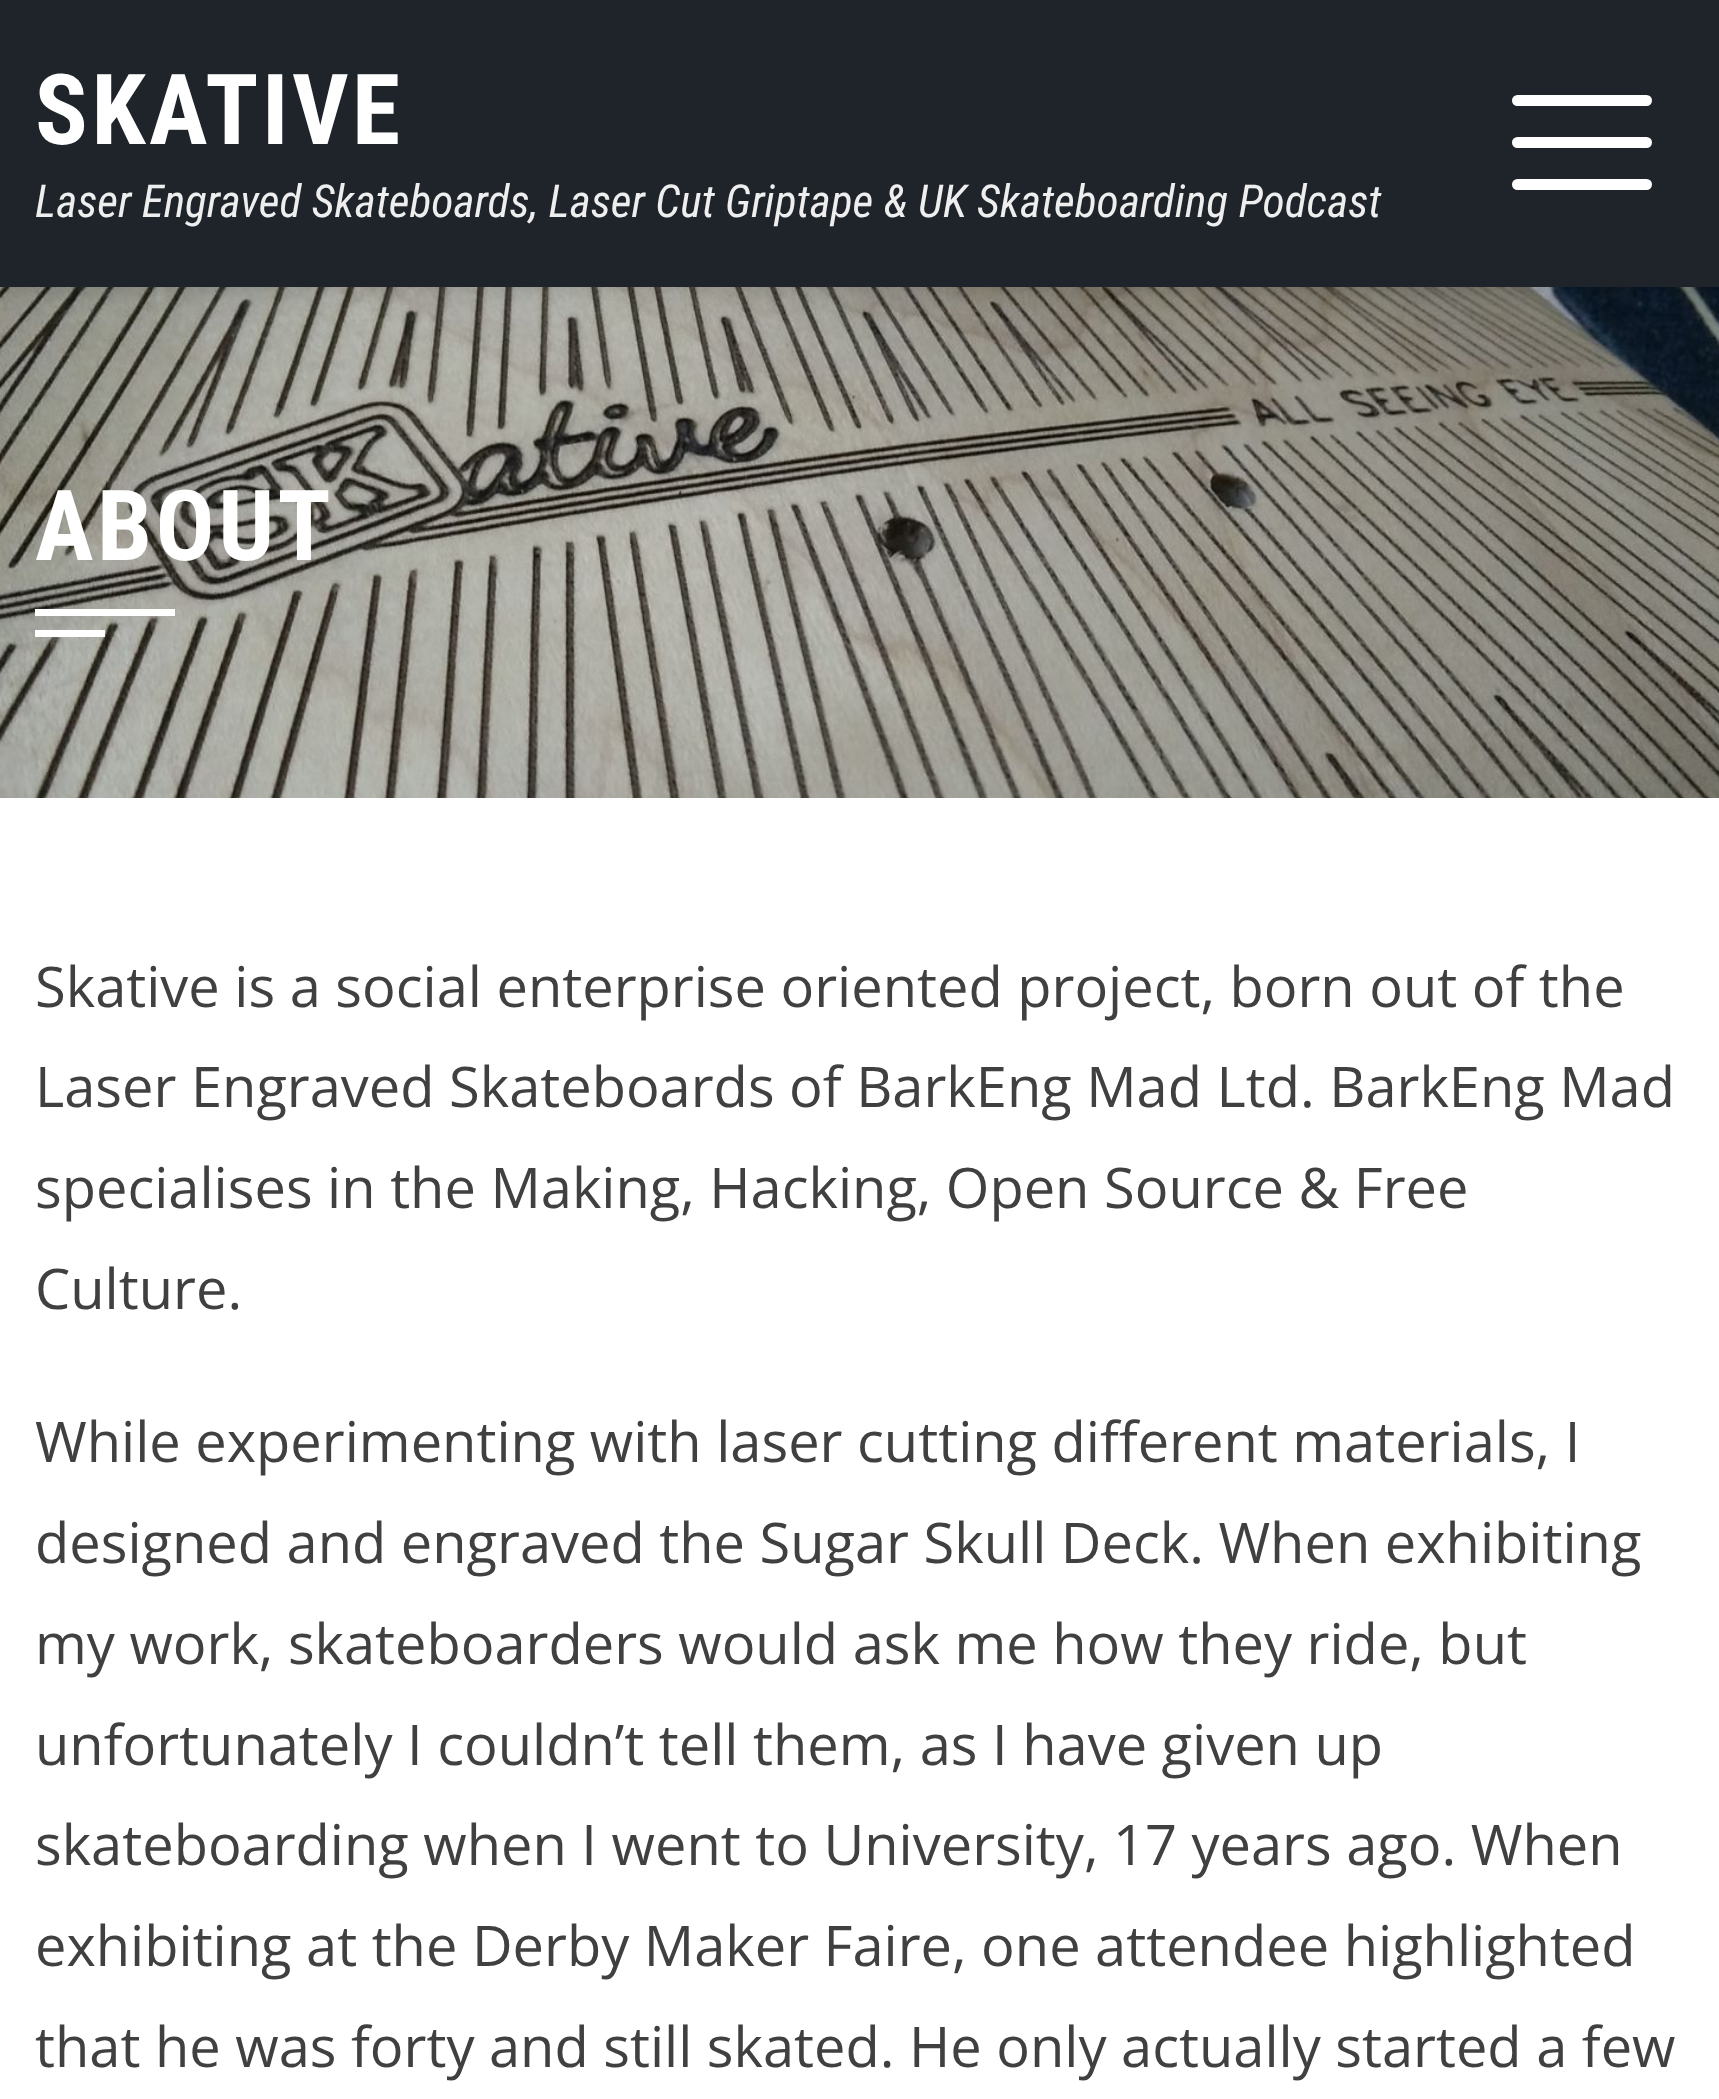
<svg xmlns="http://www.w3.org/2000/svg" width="1719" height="2099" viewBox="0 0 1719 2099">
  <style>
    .t1 { font: bold 98px Roboto Condensed; letter-spacing: 3.5px; fill: #fff; }
    .t2 { font: italic 45.5px Roboto Condensed; fill: #eee; }
    .t3 { font: 56px Open Sans; fill: #404040; }
  </style>
  <rect width="100%" height="100%" fill="#fff"/>
  <image x="0" y="287" width="1719" height="511" href="images/1.png"/>
  <rect x="0" y="0" width="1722" height="287" fill="#00000033" filter="blur(14px)"/>
  <rect x="0" y="0" width="1719" height="287" fill="#1e242a"/>
  <text x="35" y="144" class="t1">SKATIVE</text>
  <text x="35" y="217" class="t2">Laser Engraved Skateboards, Laser Cut Griptape &amp; UK Skateboarding Podcast</text>
  <rect x="1512" y="137" width="140" height="11" rx="5.5" fill="#fff"/>
  <rect x="1512" y="95" width="140" height="11" rx="5.5" fill="#fff"/>
  <rect x="1512" y="179" width="140" height="11" rx="5.5" fill="#fff"/>
  <text x="35" y="560" class="t1">ABOUT</text>
  <rect x="35" y="609" width="140" height="7" fill="#fff"/>
  <rect x="35" y="630" width="70" height="7" fill="#fff"/>
  <text x="35" y="1007" class="t3">Skative is a social enterprise oriented project, born out of the</text>
  <text x="35" y="1107" class="t3">Laser Engraved Skateboards of BarkEng Mad Ltd. BarkEng Mad</text>
  <text x="35" y="1208" class="t3">specialises in the Making, Hacking, Open Source &amp; Free</text>
  <text x="35" y="1309" class="t3">Culture.</text>
  <text x="35" y="1462" class="t3">While experimenting with laser cutting different materials, I</text>
  <text x="35" y="1563" class="t3">designed and engraved the Sugar Skull Deck. When exhibiting</text>
  <text x="35" y="1664" class="t3">my work, skateboarders would ask me how they ride, but</text>
  <text x="35" y="1765" class="t3">unfortunately I couldn’t tell them, as I have given up</text>
  <text x="35" y="1865" class="t3">skateboarding when I went to University, 17 years ago. When</text>
  <text x="35" y="1966" class="t3">exhibiting at the Derby Maker Faire, one attendee highlighted</text>
  <text x="35" y="2067" class="t3">that he was forty and still skated. He only actually started a few</text>
</svg>
